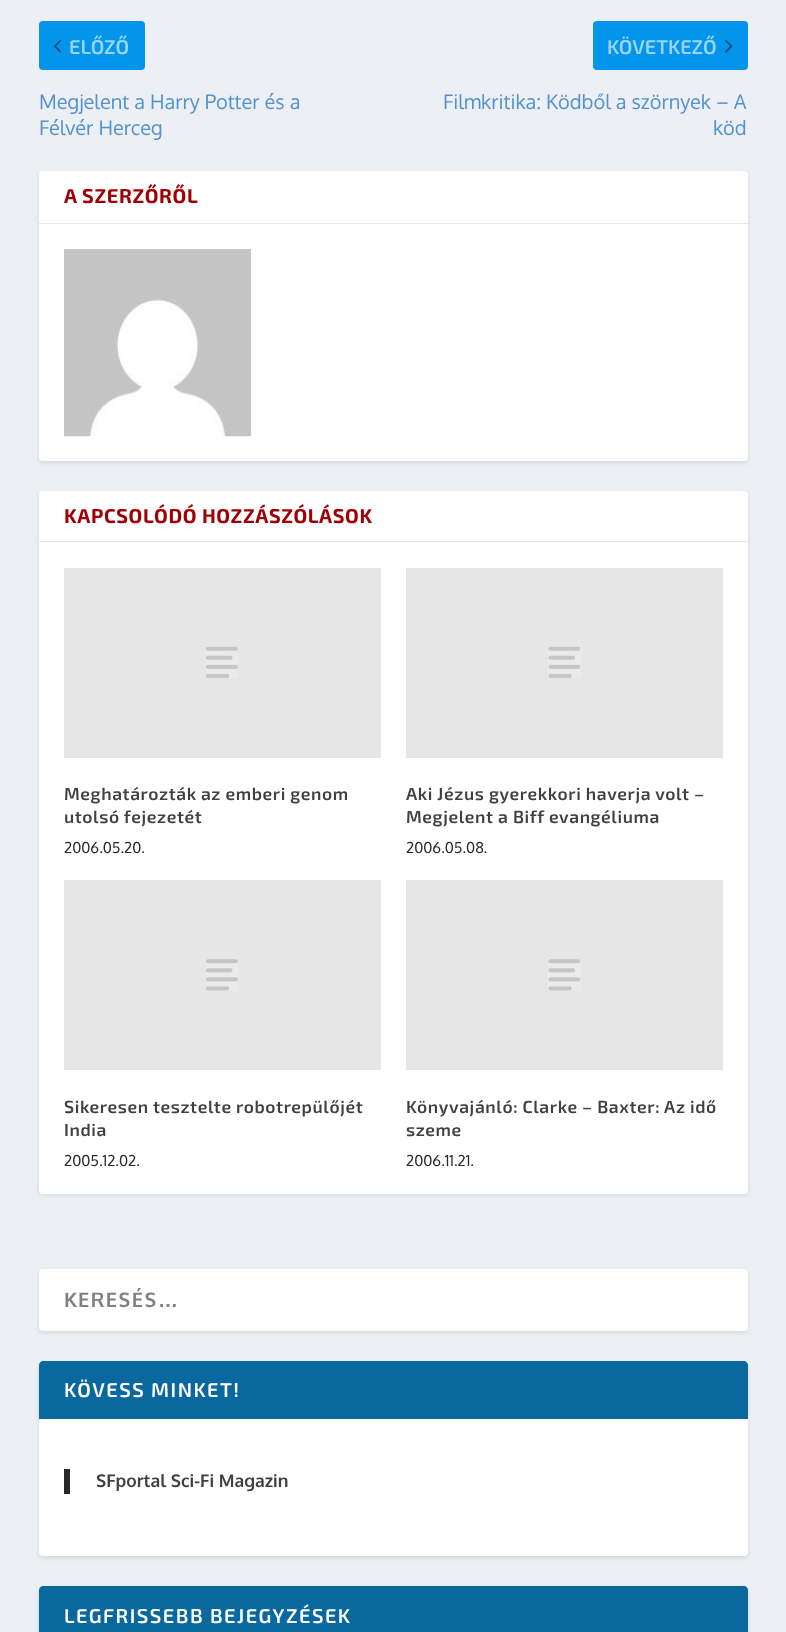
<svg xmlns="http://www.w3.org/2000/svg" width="786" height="1632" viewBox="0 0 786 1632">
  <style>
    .t1 { font: 600 20px 'Exo 2'; fill: #9ad5f7; }
    .t2 { font: 20px Oxygen; fill: #5292cc; }
    .t3 { font: bold 20px 'Exo 2'; letter-spacing: 0.6px; fill: #9e0005; }
    .t4 { font: 600 17.5px 'Exo 2'; letter-spacing: 0.6px; fill: #404040; }
    .t5 { font: 15px Oxygen; fill: #292929; }
    .t6 { font: bold 20px Oxygen; letter-spacing: 1.5px; fill: #808080; }
    .t7 { font: bold 20px Liberation Sans; letter-spacing: 1.5px; fill: #808080; }
    .t8 { font: 600 20px 'Exo 2'; letter-spacing: 1.5px; fill: #fff; }
    .t9 { font: bold 17.5px Oxygen; fill: #404040; }
  </style>
  <defs>
    <clipPath id="clip1"><rect x="64" y="1288" width="659" height="25"/></clipPath>
  </defs>
  <rect width="100%" height="100%" fill="#ecf0f5"/>
  <rect x="39" y="21" width="106" height="49" rx="4" fill="#0295eb"/>
  <image x="54" y="40" width="7" height="13" href="images/1.png"/>
  <text x="69" y="54" class="t1">ELŐZŐ</text>
  <text x="39" y="109" class="t2">Megjelent a Harry Potter és a</text>
  <text x="39" y="135" class="t2">Félvér Herceg</text>
  <rect x="593" y="21" width="155" height="49" rx="4" fill="#0295eb"/>
  <text x="607" y="54" class="t1">KÖVETKEZŐ</text>
  <image x="725" y="40" width="8" height="13" href="images/2.png"/>
  <text x="443" y="109" class="t2">Filmkritika: Ködből a szörnyek – A</text>
  <text x="713" y="135" class="t2">köd</text>
  <rect x="39" y="173" width="709" height="290" rx="4" fill="#0000001a" filter="blur(2px)"/>
  <rect x="39" y="171" width="709" height="290" rx="4" fill="#fff"/>
  <rect x="39" y="223" width="709" height="1" fill="#e6e6e6"/>
  <text x="64" y="203" class="t3">A SZERZŐRŐL</text>
  <image x="64" y="249" width="187" height="188" href="images/3.png"/>
  <rect x="39" y="493" width="709" height="702" rx="4" fill="#0000001a" filter="blur(2px)"/>
  <rect x="39" y="491" width="709" height="703" rx="4" fill="#fff"/>
  <rect x="39" y="541" width="709" height="1" fill="#e6e6e6"/>
  <text x="64" y="523" class="t3">KAPCSOLÓDÓ HOZZÁSZÓLÁSOK</text>
  <rect x="64" y="568" width="317" height="190" fill="#e6e6e6"/>
  <image x="206" y="646" width="32" height="32" href="images/4.png"/>
  <text x="64" y="800" class="t4">Meghatározták az emberi genom</text>
  <text x="64" y="823" class="t4">utolsó fejezetét</text>
  <text x="64" y="853" class="t5">2006.05.20.</text>
  <rect x="406" y="568" width="317" height="190" fill="#e6e6e6"/>
  <image x="548" y="646" width="33" height="32" href="images/5.png"/>
  <text x="406" y="800" class="t4">Aki Jézus gyerekkori haverja volt –</text>
  <text x="406" y="823" class="t4">Megjelent a Biff evangéliuma</text>
  <text x="406" y="853" class="t5">2006.05.08.</text>
  <rect x="64" y="880" width="317" height="190" fill="#e6e6e6"/>
  <image x="206" y="959" width="32" height="32" href="images/6.png"/>
  <text x="64" y="1113" class="t4">Sikeresen tesztelte robotrepülőjét</text>
  <text x="64" y="1136" class="t4">India</text>
  <text x="64" y="1166" class="t5">2005.12.02.</text>
  <rect x="406" y="880" width="317" height="190" fill="#e6e6e6"/>
  <image x="548" y="959" width="33" height="32" href="images/7.png"/>
  <text x="406" y="1113" class="t4">Könyvajánló: Clarke – Baxter: Az idő</text>
  <text x="406" y="1136" class="t4">szeme</text>
  <text x="406" y="1166" class="t5">2006.11.21.</text>
  <rect x="39" y="1270" width="709" height="63" rx="4" fill="#0000001a" filter="blur(2px)"/>
  <rect x="39" y="1269" width="709" height="62" rx="4" fill="#fff"/>
  <g clip-path="url(#clip1)">
    <text x="64" y="1307" class="t6">KERESÉS</text>
  </g>
  <text x="158" y="1307" class="t7">…</text>
  <rect x="39" y="1363" width="709" height="195" rx="4" fill="#0000001a" filter="blur(2px)"/>
  <rect x="39" y="1361" width="709" height="195" rx="4" fill="#fff"/>
  <path d="M43 1361H744C746 1361 748 1363 748 1365V1419H39V1365C39 1363 41 1361 43 1361Z" fill="#09689e"/>
  <text x="64" y="1397" class="t8">KÖVESS MINKET!</text>
  <rect x="64" y="1469" width="6" height="25" fill="#292929"/>
  <text x="96" y="1487" class="t9">SFportal Sci-Fi Magazin</text>
  <rect x="39" y="1588" width="709" height="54" rx="4" fill="#0000001a" filter="blur(2px)"/>
  <path d="M43 1586H744C746 1586 748 1588 748 1590V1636H39V1590C39 1588 41 1586 43 1586Z" fill="#09689e"/>
  <text x="64" y="1623" class="t8">LEGFRISSEBB BEJEGYZÉSEK</text>
</svg>
